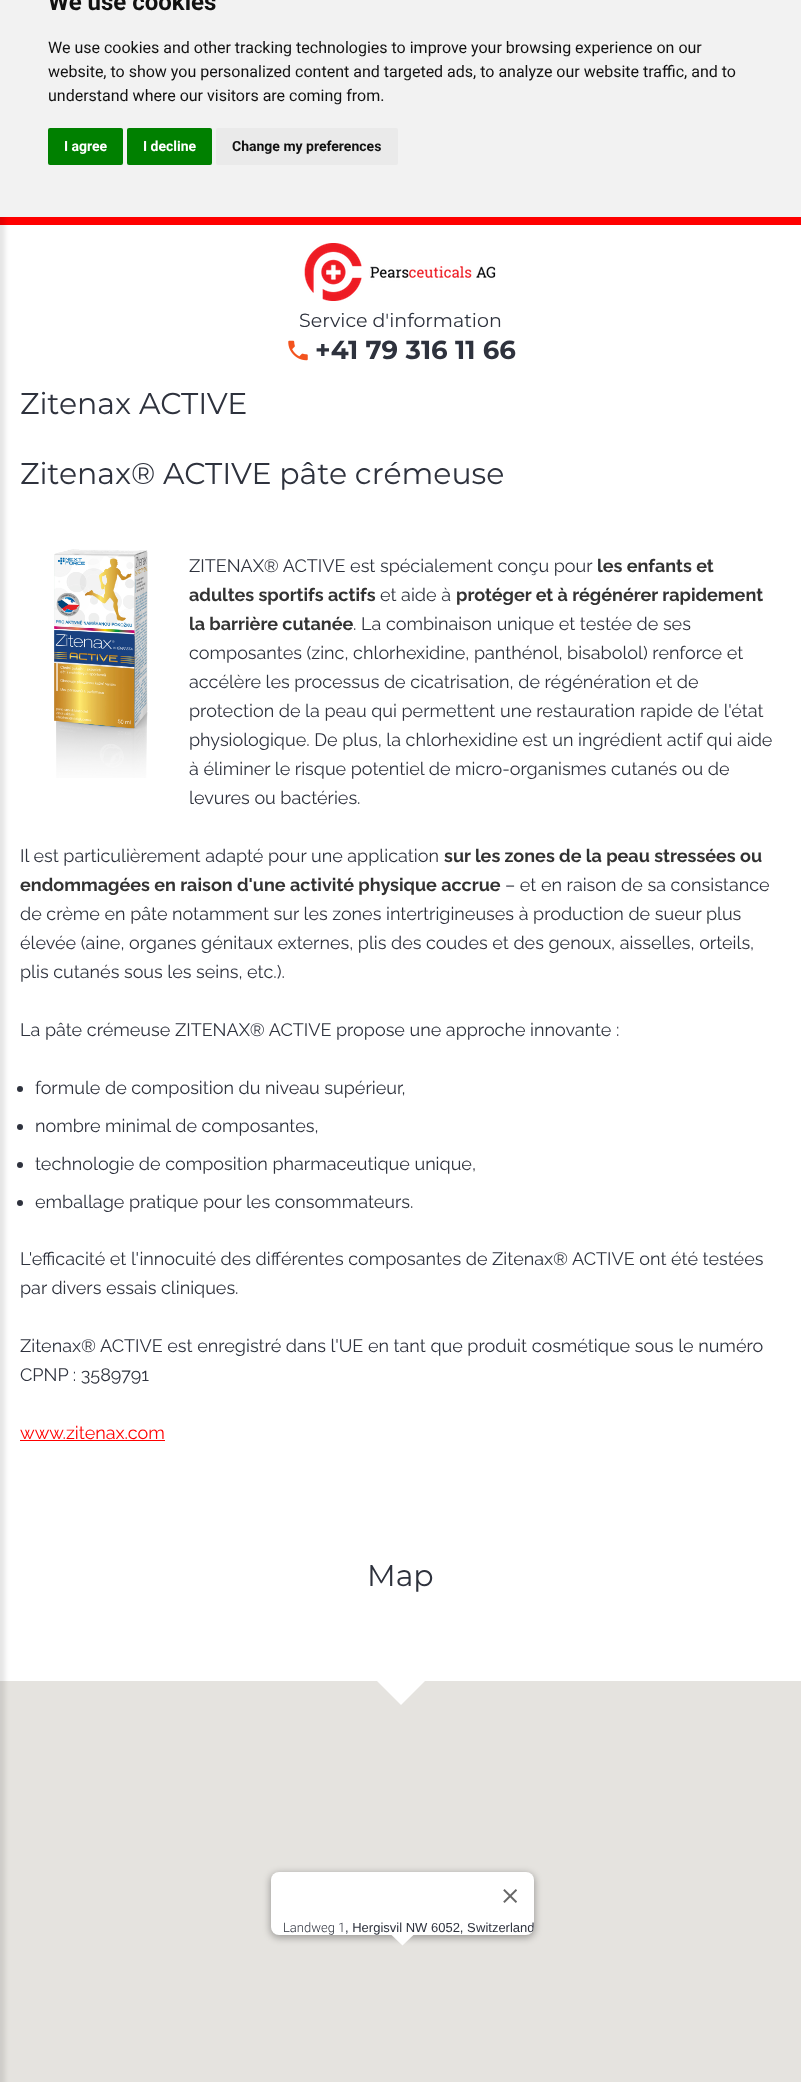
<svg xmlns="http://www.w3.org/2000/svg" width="801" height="2082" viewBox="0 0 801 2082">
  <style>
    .t1 { font: bold 24px Roboto; fill: #111; }
    .t2 { font: 16px Roboto; fill: #111; }
    .t3 { font: bold 14px Roboto; fill: #fff; }
    .t4 { font: bold 14px Roboto; fill: #111; }
    .t5 { font: 19px Montserrat; fill: #2e323d; }
    .t6 { font: bold 26px Montserrat; fill: #2e323d; }
    .t7 { font: 30px Montserrat; fill: #2e323d; }
    .t8 { font: 18px Raleway; fill: #2e323d; }
    .t9 { font: bold 18px Raleway; fill: #333; }
    .t10 { font: 18px Raleway; fill: #f00; }
    .t11 { font: 300 13px Roboto; fill: #2e323d; }
    .t12 { font: 13px Liberation Sans; fill: #2e323d; }
  </style>
  <defs>
    <clipPath id="clip1"><rect x="271" y="1872" width="263" height="63" rx="8"/></clipPath>
  </defs>
  <rect width="100%" height="100%" fill="#fff"/>
  <rect x="0" y="217" width="801" height="8" fill="#f00"/>
  <rect x="0" y="1681" width="801" height="401" fill="#e5e3df"/>
  <rect x="-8" y="56" width="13" height="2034" fill="#0000001a" filter="blur(2.5px)"/>
  <rect x="0" y="0" width="801" height="217" fill="#f2f2f2"/>
  <text x="48" y="10" class="t1">We use cookies</text>
  <text x="48" y="53" class="t2">We use cookies and other tracking technologies to improve your browsing experience on our</text>
  <text x="48" y="77" class="t2">website, to show you personalized content and targeted ads, to analyze our website traffic, and to</text>
  <text x="48" y="101" class="t2">understand where our visitors are coming from.</text>
  <rect x="48" y="128" width="75" height="37" rx="2" fill="#008000"/>
  <text x="64" y="151" class="t3">I agree</text>
  <rect x="127" y="128" width="85" height="37" rx="2" fill="#008000"/>
  <text x="143" y="151" class="t3">I decline</text>
  <rect x="216" y="128" width="182" height="37" rx="2" fill="#eaeaea"/>
  <text x="232" y="151" class="t4">Change my preferences</text>
  <image x="304" y="243" width="192" height="58" href="images/1.png"/>
  <text x="299" y="327" class="t5">Service d'information</text>
  <image x="288" y="340" width="20" height="21" href="images/2.png"/>
  <text x="315" y="359" class="t6">+41 79 316 11 66</text>
  <text x="20" y="414" class="t7">Zitenax ACTIVE</text>
  <text x="20" y="484" class="t7">Zitenax® ACTIVE pâte crémeuse</text>
  <image x="54" y="549" width="94" height="229" href="images/3.png"/>
  <text x="189" y="572" class="t8">ZITENAX® ACTIVE est spécialement conçu pour</text>
  <text x="597" y="572" class="t9">les enfants et</text>
  <text x="189" y="601" class="t9">adultes sportifs actifs</text>
  <text x="380" y="601" class="t8">et aide à</text>
  <text x="456" y="601" class="t9">protéger et à régénérer rapidement</text>
  <text x="189" y="630" class="t9">la barrière cutanée</text>
  <text x="353" y="630" class="t8">. La combinaison unique et testée de ses</text>
  <text x="189" y="659" class="t8">composantes (zinc, chlorhexidine, panthénol, bisabolol) renforce et</text>
  <text x="189" y="688" class="t8">accélère les processus de cicatrisation, de régénération et de</text>
  <text x="189" y="717" class="t8">protection de la peau qui permettent une restauration rapide de l'état</text>
  <text x="189" y="746" class="t8">physiologique. De plus, la chlorhexidine est un ingrédient actif qui aide</text>
  <text x="189" y="775" class="t8">à éliminer le risque potentiel de micro-organismes cutanés ou de</text>
  <text x="189" y="804" class="t8">levures ou bactéries.</text>
  <text x="20" y="862" class="t8">Il est particulièrement adapté pour une application</text>
  <text x="444" y="862" class="t9">sur les zones de la peau stressées ou</text>
  <text x="20" y="891" class="t9">endommagées en raison d'une activité physique accrue</text>
  <text x="505" y="891" class="t8">– et en raison de sa consistance</text>
  <text x="20" y="920" class="t8">de crème en pâte notamment sur les zones intertrigineuses à production de sueur plus</text>
  <text x="20" y="949" class="t8">élevée (aine, organes génitaux externes, plis des coudes et des genoux, aisselles, orteils,</text>
  <text x="20" y="978" class="t8">plis cutanés sous les seins, etc.).</text>
  <text x="20" y="1036" class="t8">La pâte crémeuse ZITENAX® ACTIVE propose une approche innovante :</text>
  <circle cx="20" cy="1089" r="3" fill="#2e323d"/>
  <text x="35" y="1094" class="t8">formule de composition du niveau supérieur,</text>
  <circle cx="20" cy="1127" r="3" fill="#2e323d"/>
  <text x="35" y="1132" class="t8">nombre minimal de composantes,</text>
  <circle cx="20" cy="1165" r="3" fill="#2e323d"/>
  <text x="35" y="1170" class="t8">technologie de composition pharmaceutique unique,</text>
  <circle cx="20" cy="1203" r="3" fill="#2e323d"/>
  <text x="35" y="1208" class="t8">emballage pratique pour les consommateurs.</text>
  <text x="20" y="1265" class="t8">L'efficacité et l'innocuité des différentes composantes de Zitenax® ACTIVE ont été testées</text>
  <text x="20" y="1294" class="t8">par divers essais cliniques.</text>
  <text x="20" y="1352" class="t8">Zitenax® ACTIVE est enregistré dans l'UE en tant que produit cosmétique sous le numéro</text>
  <text x="20" y="1381" class="t8">CPNP : 3589791</text>
  <text x="20" y="1439" class="t10">www.zitenax.com</text>
  <rect x="20" y="1440" width="145" height="1" fill="#f00"/>
  <text x="367" y="1586" class="t7">Map</text>
  <path d="M377 1681H425L401 1705Z" fill="#fff"/>
  <rect x="270" y="1873" width="265" height="65" rx="9" fill="#0000004d" filter="blur(3.5px)"/>
  <rect x="271" y="1872" width="263" height="63" rx="8" fill="#fff"/>
  <image x="503" y="1889" width="14" height="14" href="images/4.png"/>
  <text x="283" y="1932" class="t11">Landweg 1</text>
  <text x="345" y="1932" class="t12">, Hergisvil NW 6052, S</text>
  <g clip-path="url(#clip1)">
    <text x="476" y="1932" class="t12">witzerland</text>
  </g>
  <path d="M391 1934V1934.5L402.5 1945.5L414.5 1934Z" fill="#fff"/>
</svg>
